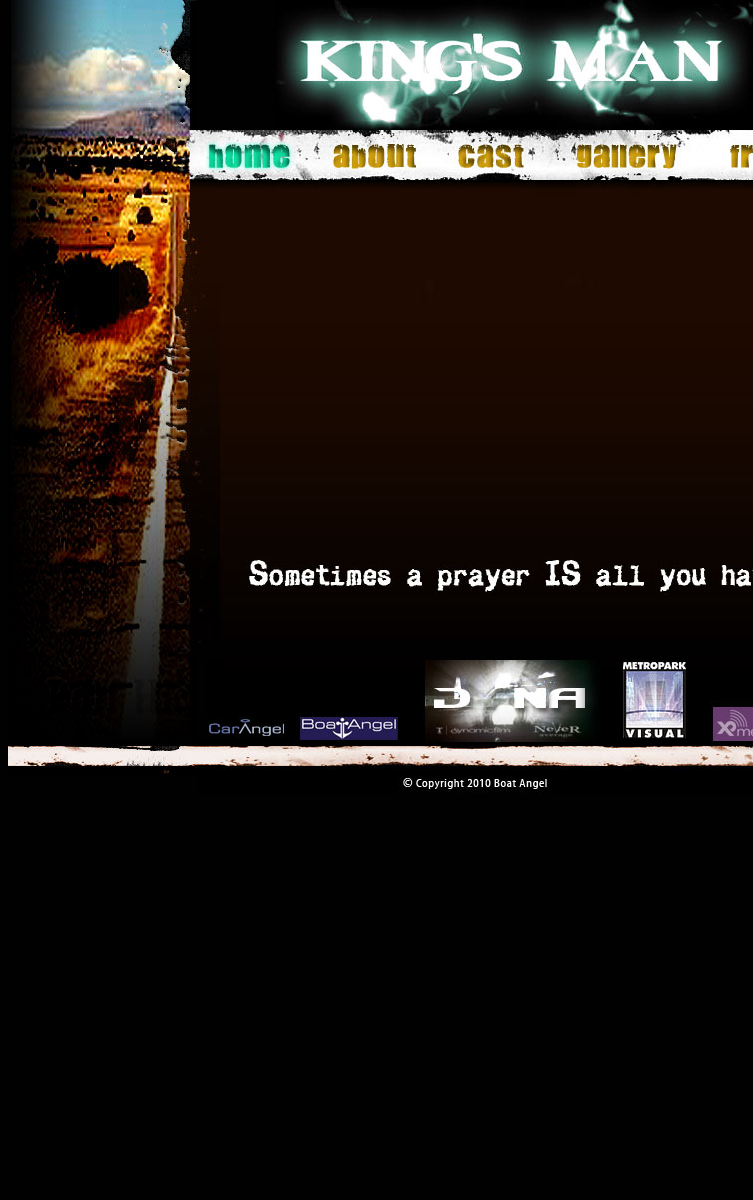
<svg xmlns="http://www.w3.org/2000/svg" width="753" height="1200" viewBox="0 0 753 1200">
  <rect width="100%" height="100%" fill="#010101"/>
  <image x="8" y="0" width="190" height="776" href="images/1.png"/>
  <image x="276" y="0" width="477" height="130" href="images/2.png"/>
  <image x="198" y="130" width="112" height="50" href="images/3.png"/>
  <image x="310" y="130" width="127" height="50" href="images/4.png"/>
  <image x="437" y="130" width="109" height="50" href="images/5.png"/>
  <image x="546" y="130" width="160" height="50" href="images/6.png"/>
  <image x="706" y="130" width="47" height="50" href="images/7.png"/>
  <image x="198" y="182" width="555" height="374" href="images/8.png"/>
  <image x="198" y="556" width="555" height="87" href="images/9.png"/>
  <image x="206" y="660" width="547" height="78" href="images/10.png"/>
  <image x="198" y="738" width="555" height="56" href="images/11.png"/>
</svg>
